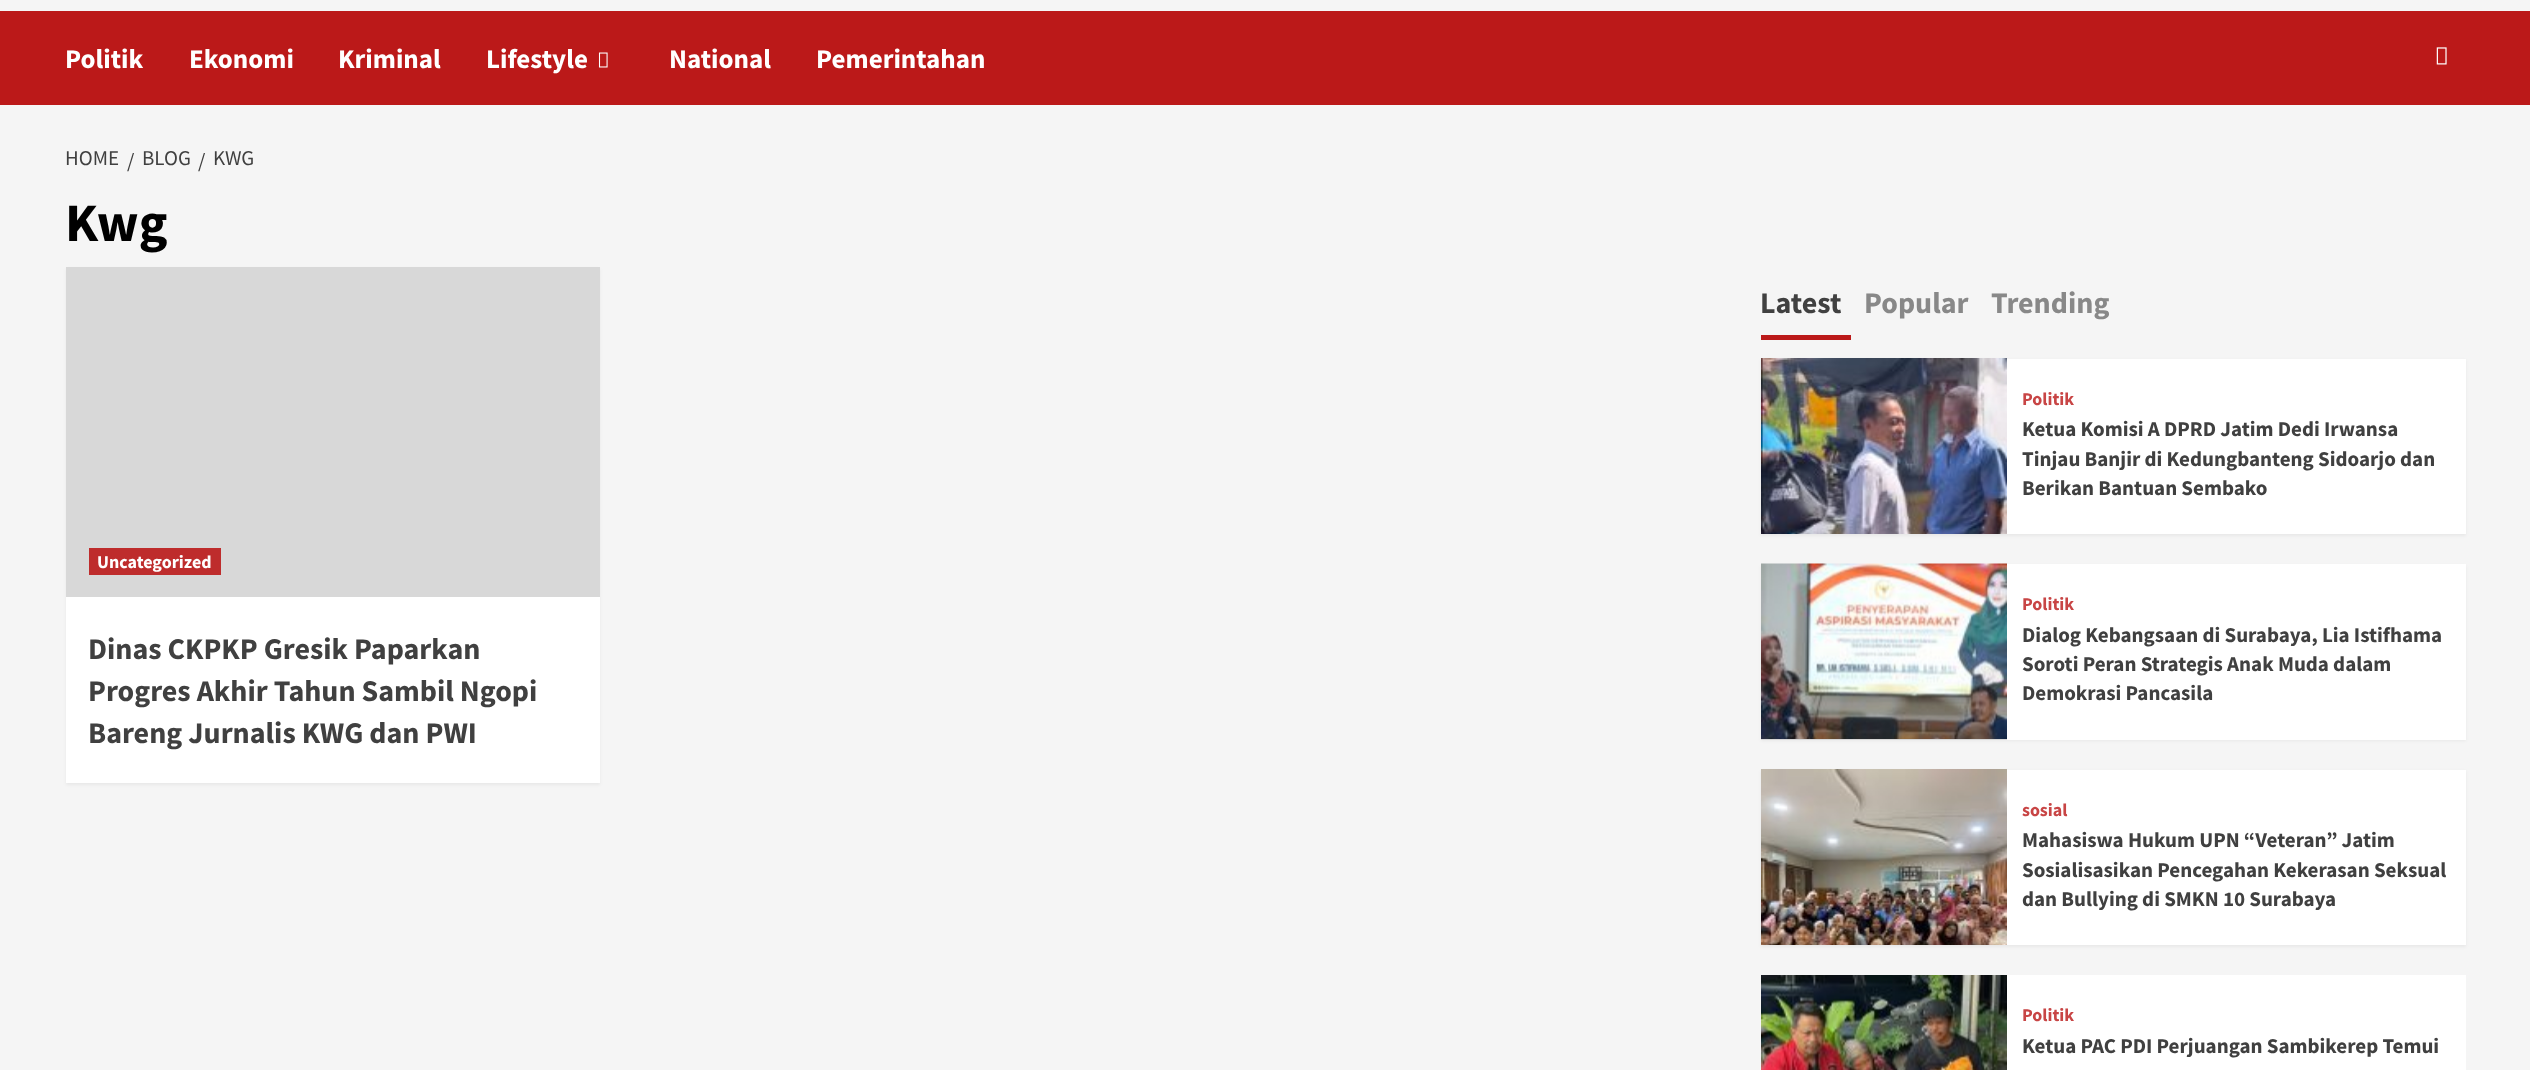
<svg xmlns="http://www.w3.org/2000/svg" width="2530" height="1070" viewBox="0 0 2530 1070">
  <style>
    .t1 { font: bold 27px Source Sans Pro; fill: #fff; }
    .t2 { font: 21px Source Sans Pro; fill: #404040; }
    .t3 { font: bold 54px Source Sans Pro; fill: #000; }
    .t4 { font: bold 18px Source Sans Pro; fill: #fff; }
    .t5 { font: bold 30px Source Sans Pro; fill: #404040; }
    .t6 { font: bold 30px Source Sans Pro; fill: #888; }
    .t7 { font: bold 18px Source Sans Pro; fill: #c84545; }
    .t8 { font: bold 21px Source Sans Pro; fill: #404040; }
  </style>
  <rect width="100%" height="100%" fill="#f5f5f5"/>
  <rect x="0" y="11" width="2530" height="94" fill="#bb1919"/>
  <text x="65" y="68" class="t1">Politik</text>
  <text x="189" y="68" class="t1">Ekonomi</text>
  <text x="338" y="68" class="t1">Kriminal</text>
  <text x="486" y="68" class="t1">Lifestyle</text>
  <image x="598" y="52" width="10" height="16" href="images/1.png"/>
  <text x="669" y="68" class="t1">National</text>
  <text x="816" y="68" class="t1">Pemerintahan</text>
  <image x="2436" y="47" width="11" height="18" href="images/2.png"/>
  <text x="65" y="165" class="t2">HOME</text>
  <text x="127" y="168" class="t2">/</text>
  <text x="142" y="165" class="t2">BLOG</text>
  <text x="198" y="168" class="t2">/</text>
  <text x="213" y="165" class="t2">KWG</text>
  <text x="65" y="241" class="t3">Kwg</text>
  <rect x="66" y="269" width="534" height="516" fill="#0000000d" filter="blur(1.5px)"/>
  <rect x="66" y="597" width="534" height="186" fill="#fff"/>
  <rect x="66" y="267" width="534" height="330" fill="#d8d8d8"/>
  <rect x="89" y="548" width="132" height="27" fill="#be2c2c"/>
  <text x="97" y="568" class="t4">Uncategorized</text>
  <text x="88" y="659" class="t5">Dinas CKPKP Gresik Paparkan</text>
  <text x="88" y="701" class="t5">Progres Akhir Tahun Sambil Ngopi</text>
  <text x="88" y="743" class="t5">Bareng Jurnalis KWG dan PWI</text>
  <text x="1760" y="313" class="t5">Latest</text>
  <rect x="1761" y="335" width="90" height="5" fill="#bb1919"/>
  <text x="1864" y="313" class="t6">Popular</text>
  <text x="1991" y="313" class="t6">Trending</text>
  <rect x="1761" y="360" width="705" height="176" fill="#0000000d" filter="blur(1.5px)"/>
  <rect x="2007" y="359" width="459" height="175" fill="#fff"/>
  <image x="1761" y="358" width="246" height="176" href="images/3.png"/>
  <text x="2022" y="405" class="t7">Politik</text>
  <text x="2022" y="436" class="t8">Ketua Komisi A DPRD Jatim Dedi Irwansa</text>
  <text x="2022" y="466" class="t8">Tinjau Banjir di Kedungbanteng Sidoarjo dan</text>
  <text x="2022" y="495" class="t8">Berikan Bantuan Sembako</text>
  <rect x="1761" y="566" width="705" height="175" fill="#0000000d" filter="blur(1.5px)"/>
  <rect x="2007" y="564" width="459" height="176" fill="#fff"/>
  <rect x="1761" y="739" width="246" height="1" fill="#d8d8d8"/>
  <image x="1761" y="563" width="246" height="176" href="images/4.png"/>
  <text x="2022" y="610" class="t7">Politik</text>
  <text x="2022" y="642" class="t8">Dialog Kebangsaan di Surabaya, Lia Istifhama</text>
  <text x="2022" y="671" class="t8">Soroti Peran Strategis Anak Muda dalam</text>
  <text x="2022" y="700" class="t8">Demokrasi Pancasila</text>
  <rect x="1761" y="771" width="705" height="176" fill="#0000000d" filter="blur(1.5px)"/>
  <rect x="2007" y="770" width="459" height="175" fill="#fff"/>
  <image x="1761" y="769" width="246" height="176" href="images/5.png"/>
  <text x="2022" y="816" class="t7">sosial</text>
  <text x="2022" y="847" class="t8">Mahasiswa Hukum UPN “Veteran” Jatim</text>
  <text x="2022" y="877" class="t8">Sosialisasikan Pencegahan Kekerasan Seksual</text>
  <text x="2022" y="906" class="t8">dan Bullying di SMKN 10 Surabaya</text>
  <rect x="2007" y="975" width="459" height="95" fill="#fff"/>
  <image x="1761" y="975" width="246" height="95" href="images/6.png"/>
  <text x="2022" y="1021" class="t7">Politik</text>
  <text x="2022" y="1053" class="t8">Ketua PAC PDI Perjuangan Sambikerep Temui</text>
</svg>
